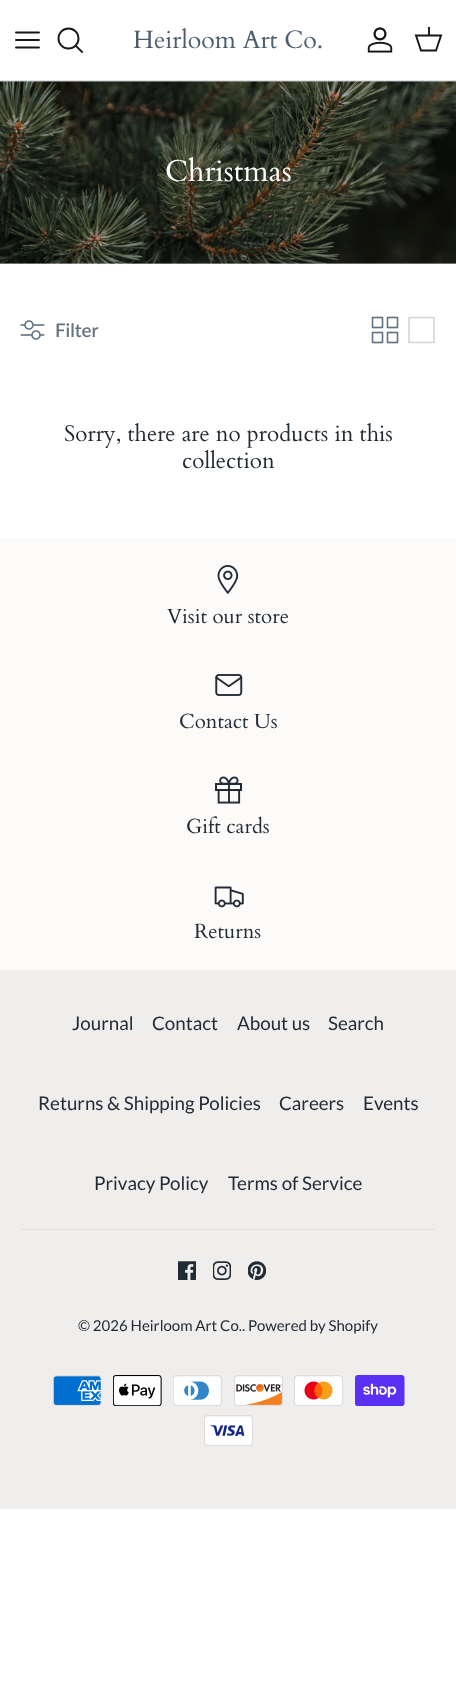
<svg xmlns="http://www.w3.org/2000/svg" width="456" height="1683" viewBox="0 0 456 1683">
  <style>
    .t1 { font: 25px Cardo; fill: #4b5d6e; }
    .t2 { font: 30px Cardo; fill: #fff; }
    .t3 { font: 600 18.75px Lato; fill: #637381; }
    .t4 { font: 22.5px Cardo; fill: #212b36; }
    .t5 { font: 20.5px Cardo; fill: #212b36; }
    .t6 { font: 18.75px Lato; fill: #212b36; }
    .t7 { font: 15px Lato; fill: #212b36; }
  </style>
  <defs>
    <radialGradient id="g1" gradientUnits="userSpaceOnUse" cx="0" cy="0" r="1" gradientTransform="matrix(499 0 0 412 228 173)"><stop offset="0" stop-color="#000" stop-opacity="0.15"/><stop offset="0.7" stop-color="#000" stop-opacity="0"/></radialGradient>
  </defs>
  <rect width="100%" height="100%" fill="#fff"/>
  <rect x="0" y="81" width="456" height="183" fill="#e8e8e8"/>
  <rect x="0" y="80" width="456" height="1" fill="#e2e2e2"/>
  <path d="M16 40H39M16 32.5H39M16 47.5H39" fill="none" stroke="#171717" stroke-width="1.9" stroke-linecap="round" stroke-linejoin="round"/>
  <circle cx="68.5" cy="38.5" r="10" fill="none" stroke="#171717" stroke-width="1.9"/>
  <path d="M76 46L82 52" fill="none" stroke="#171717" stroke-width="1.9" stroke-linecap="square"/>
  <text x="133" y="48" class="t1">Heirloom Art Co.</text>
  <image x="367" y="27" width="26" height="26" href="images/1.png"/>
  <path d="M416 35.5H441L436 50.5H421Z" fill="none" stroke="#171717" stroke-width="1.9"/>
  <rect x="428" y="27" width="2" height="9" fill="#171717f2"/>
  <image x="0" y="81" width="456" height="183" href="images/2.png"/>
  <rect x="0" y="81" width="456" height="183" fill="url(#g1)"/>
  <text x="165" y="181" class="t2">Christmas</text>
  <image x="20" y="320" width="25" height="20" href="images/3.png"/>
  <text x="55" y="337" class="t3">Filter</text>
  <image x="371" y="316" width="28" height="28" href="images/4.png"/>
  <path d="M409 317.5H434V342.5H409V317.5" fill="none" stroke="#d0d5d9" stroke-width="1.6" stroke-linecap="round" stroke-linejoin="round"/>
  <text x="64" y="441" class="t4">Sorry, there are no products in this</text>
  <text x="182" y="468" class="t4">collection</text>
  <rect x="0" y="970" width="456" height="539" fill="#f0eeed"/>
  <rect x="0" y="538" width="456" height="432" fill="#fdfbfa"/>
  <image x="217" y="565" width="22" height="30" href="images/5.png"/>
  <text x="167" y="623" class="t5">Visit our store</text>
  <image x="215" y="674" width="28" height="22" href="images/6.png"/>
  <text x="179" y="728" class="t5">Contact Us</text>
  <image x="215" y="776" width="27" height="28" href="images/7.png"/>
  <text x="186" y="833" class="t5">Gift cards</text>
  <image x="214" y="886" width="30" height="22" href="images/8.png"/>
  <text x="194" y="938" class="t5">Returns</text>
  <rect x="20" y="1229" width="416" height="1" fill="#e2e2e2"/>
  <text x="72" y="1030" class="t6">Journal</text>
  <text x="152" y="1030" class="t6">Contact</text>
  <text x="237" y="1030" class="t6">About us</text>
  <text x="328" y="1030" class="t6">Search</text>
  <text x="38" y="1110" class="t6">Returns &amp; Shipping Policies</text>
  <text x="279" y="1110" class="t6">Careers</text>
  <text x="363" y="1110" class="t6">Events</text>
  <text x="94" y="1190" class="t6">Privacy Policy</text>
  <text x="228" y="1190" class="t6">Terms of Service</text>
  <image x="178" y="1261" width="18" height="19" href="images/9.png"/>
  <image x="213" y="1261" width="18" height="19" href="images/10.png"/>
  <image x="248" y="1261" width="18" height="19" href="images/11.png"/>
  <text x="78" y="1331" class="t7">© 2026 Heirloom Art Co.. Powered by Shopify</text>
  <image x="53" y="1375" width="48" height="31" href="images/12.png"/>
  <image x="113" y="1375" width="49" height="31" href="images/13.png"/>
  <image x="173" y="1375" width="49" height="31" href="images/14.png"/>
  <image x="234" y="1375" width="49" height="31" href="images/15.png"/>
  <image x="294" y="1375" width="49" height="31" href="images/16.png"/>
  <image x="355" y="1375" width="50" height="31" href="images/17.png"/>
  <image x="204" y="1415" width="49" height="31" href="images/18.png"/>
</svg>
